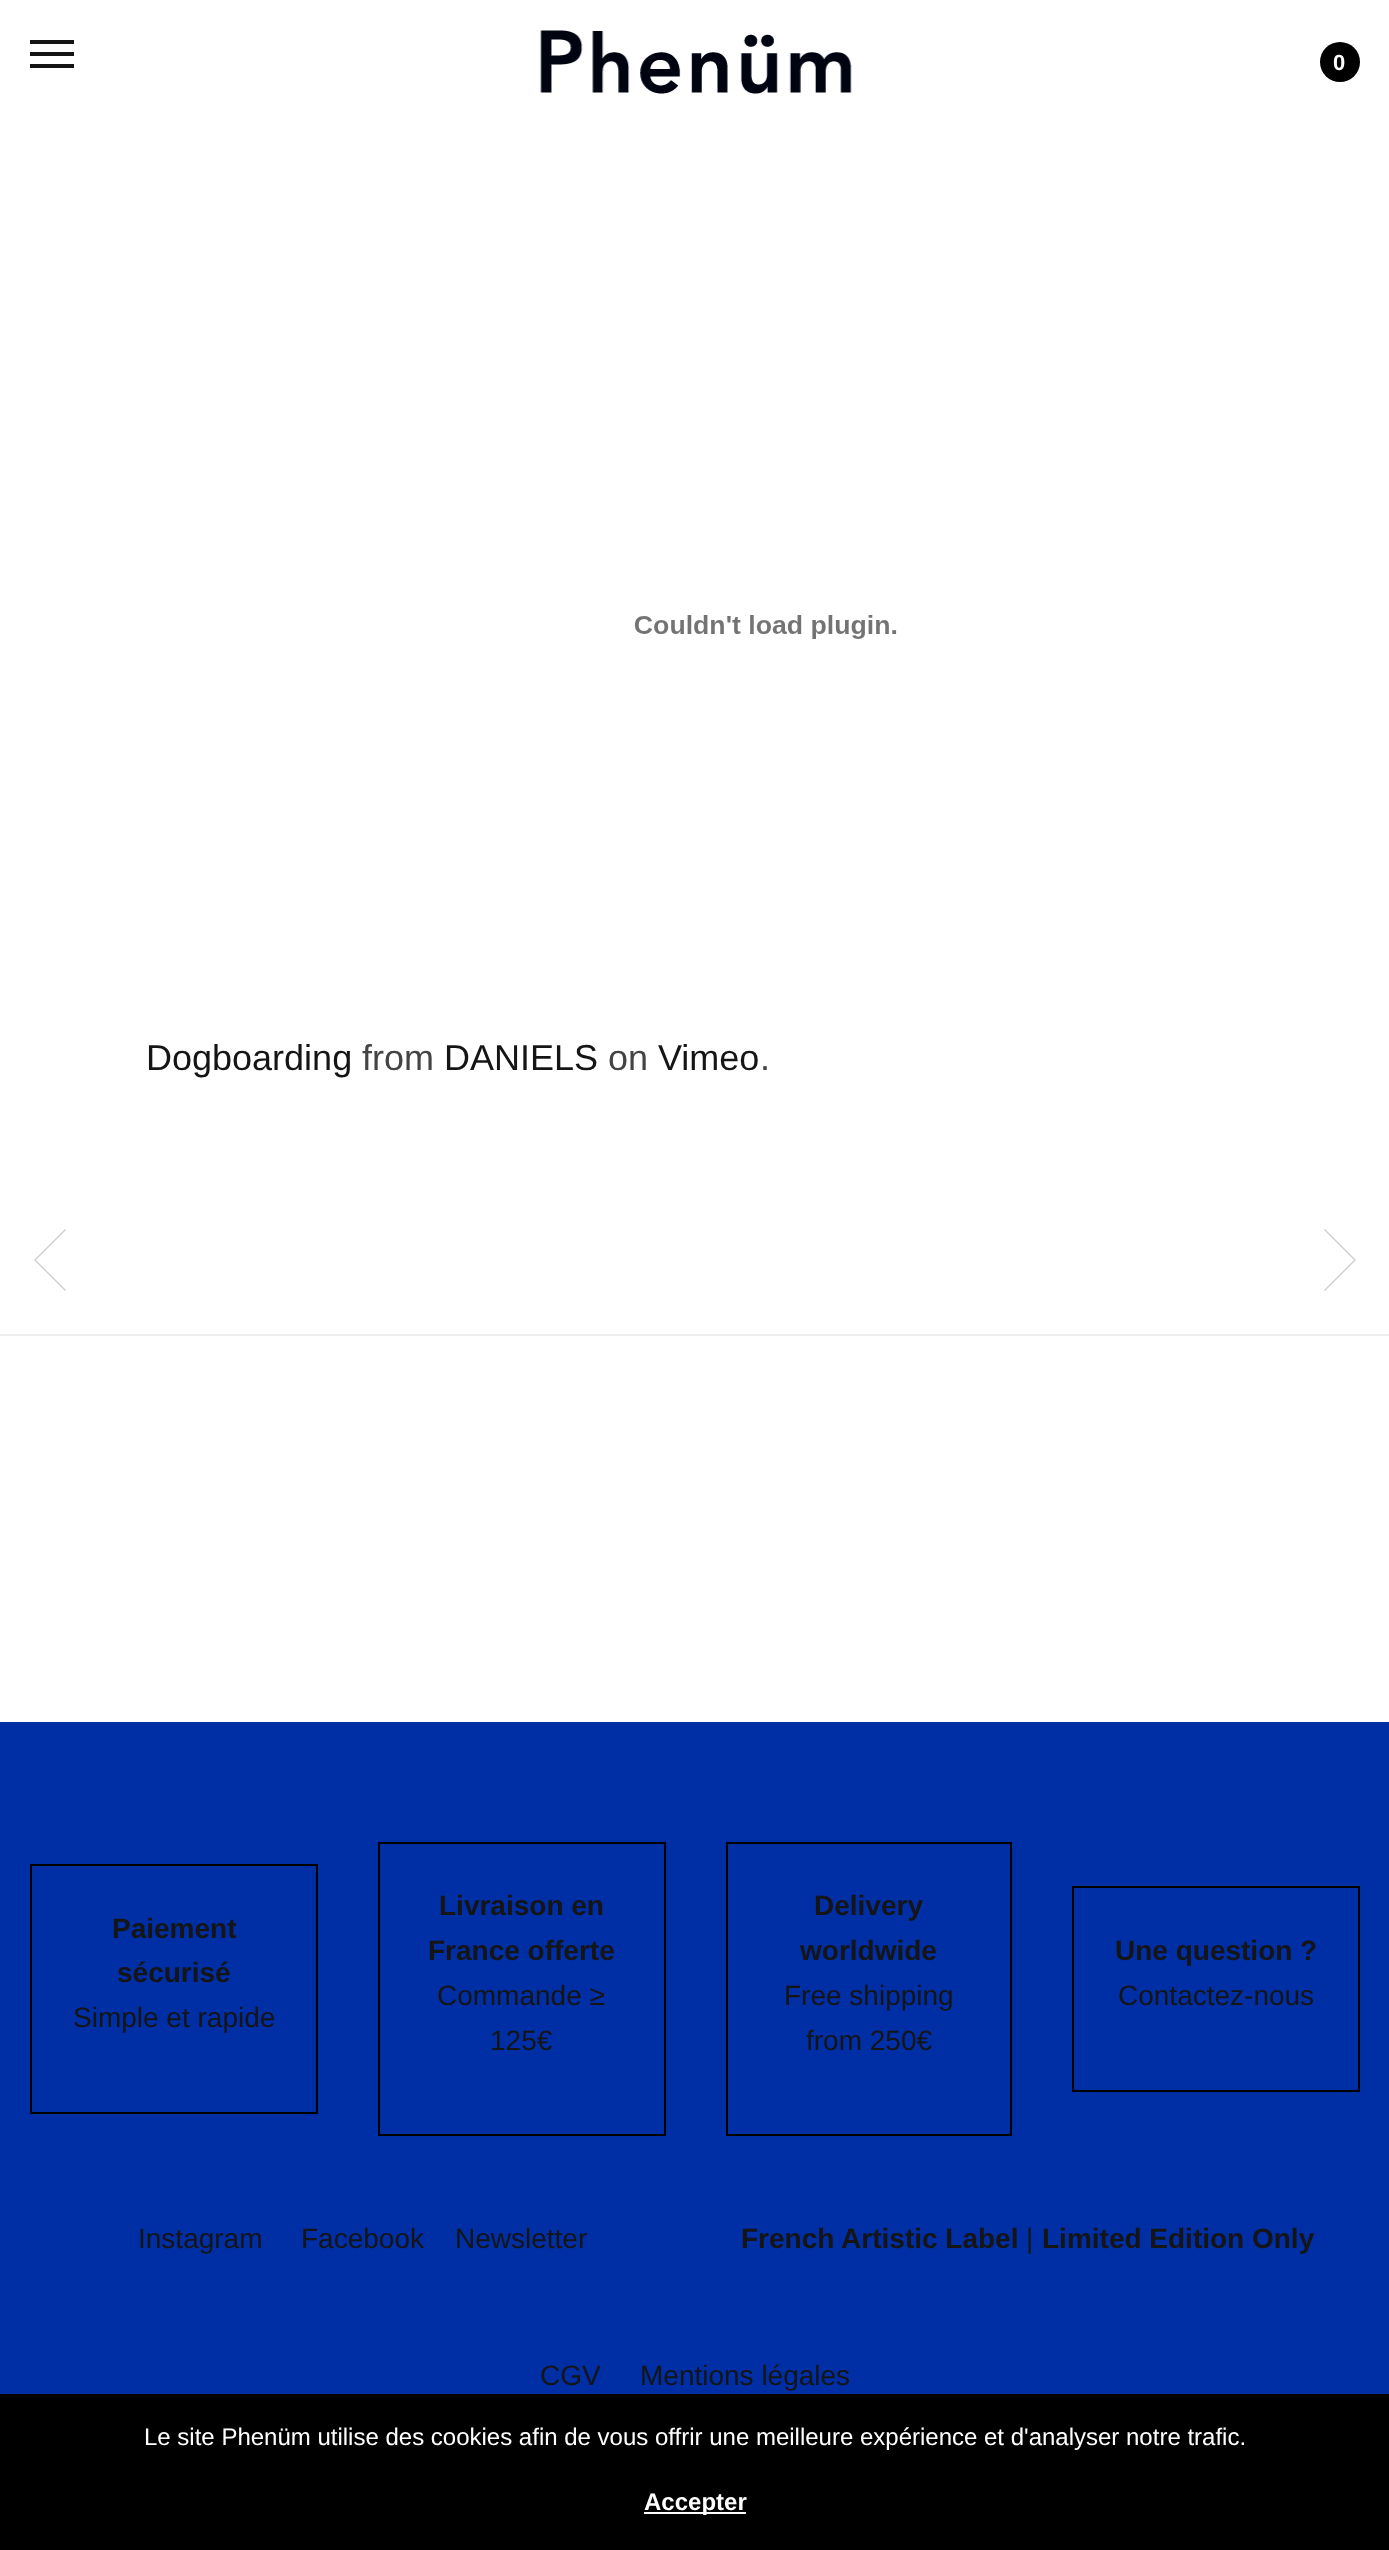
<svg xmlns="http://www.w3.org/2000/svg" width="1389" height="2550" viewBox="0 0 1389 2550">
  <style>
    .t1 { font: bold 22px Liberation Sans; letter-spacing: 2px; fill: #fff; }
    .t2 { font: 36px Liberation Sans; fill: #151515; }
    .t3 { font: 36px Liberation Sans; fill: #444; }
    .t4 { font: bold 28px Liberation Sans; fill: #151515; }
    .t5 { font: 28px Liberation Sans; fill: #151515; }
    .t6 { font: 24px Liberation Sans; fill: #fff; }
    .t7 { font: bold 24px Liberation Sans; fill: #fff; }
  </style>
  <rect width="100%" height="100%" fill="#fff"/>
  <rect x="30" y="40" width="44" height="4" fill="#151515"/>
  <rect x="30" y="52" width="44" height="4" fill="#151515"/>
  <rect x="30" y="64" width="44" height="4" fill="#151515"/>
  <image x="540" y="30" width="312" height="64" href="images/1.png"/>
  <circle cx="1340" cy="62" r="20" fill="#000"/>
  <text x="1333" y="70" class="t1">0</text>
  <image x="634" y="615" width="263" height="24" href="images/2.png"/>
  <text x="146" y="1070" class="t2">Dogboarding</text>
  <text x="362" y="1070" class="t3">from</text>
  <text x="444" y="1070" class="t2">DANIELS</text>
  <text x="608" y="1070" class="t3">on</text>
  <text x="658" y="1070" class="t2">Vimeo</text>
  <text x="760" y="1070" class="t3">.</text>
  <rect x="0" y="1334" width="1389" height="2" fill="#efefef"/>
  <path d="M34 1260L65 1229L66 1230L36 1260L66 1290L65 1291Z" fill="#d0d0d0" fill-rule="evenodd"/>
  <path d="M1356 1260L1325 1229L1324 1230L1354 1260L1324 1290L1325 1291Z" fill="#d0d0d0" fill-rule="evenodd"/>
  <rect x="0" y="1722" width="1389" height="672" fill="#002ea5"/>
  <rect x="31" y="1865" width="286" height="248" fill="none" stroke="#000" stroke-width="2"/>
  <text x="112" y="1938" class="t4">Paiement</text>
  <text x="117" y="1982" class="t4">sécurisé</text>
  <text x="73" y="2027" class="t5">Simple et rapide</text>
  <rect x="379" y="1843" width="286" height="292" fill="none" stroke="#000" stroke-width="2"/>
  <text x="439" y="1915" class="t4">Livraison en</text>
  <text x="428" y="1960" class="t4">France offerte</text>
  <text x="437" y="2005" class="t5">Commande ≥</text>
  <text x="490" y="2050" class="t5">125€</text>
  <rect x="727" y="1843" width="284" height="292" fill="none" stroke="#000" stroke-width="2"/>
  <text x="814" y="1915" class="t4">Delivery</text>
  <text x="800" y="1960" class="t4">worldwide</text>
  <text x="784" y="2005" class="t5">Free shipping</text>
  <text x="806" y="2050" class="t5">from 250€</text>
  <rect x="1073" y="1887" width="286" height="204" fill="none" stroke="#000" stroke-width="2"/>
  <text x="1115" y="1960" class="t4">Une question ?</text>
  <text x="1118" y="2005" class="t5">Contactez-nous</text>
  <text x="138" y="2248" class="t5">Instagram</text>
  <text x="301" y="2248" class="t5">Facebook</text>
  <text x="455" y="2248" class="t5">Newsletter</text>
  <text x="741" y="2248" class="t4">French Artistic Label</text>
  <text x="1026" y="2248" class="t5">|</text>
  <text x="1042" y="2248" class="t4">Limited Edition Only</text>
  <text x="540" y="2385" class="t5">CGV</text>
  <text x="640" y="2385" class="t5">Mentions légales</text>
  <rect x="0" y="2394" width="1389" height="156" fill="#000"/>
  <text x="144" y="2445" class="t6">Le site Phenüm utilise des cookies afin de vous offrir une meilleure expérience et d'analyser notre trafic.</text>
  <rect x="644" y="2512" width="102" height="2" fill="#fff"/>
  <text x="644" y="2510" class="t7">Accepter</text>
</svg>
